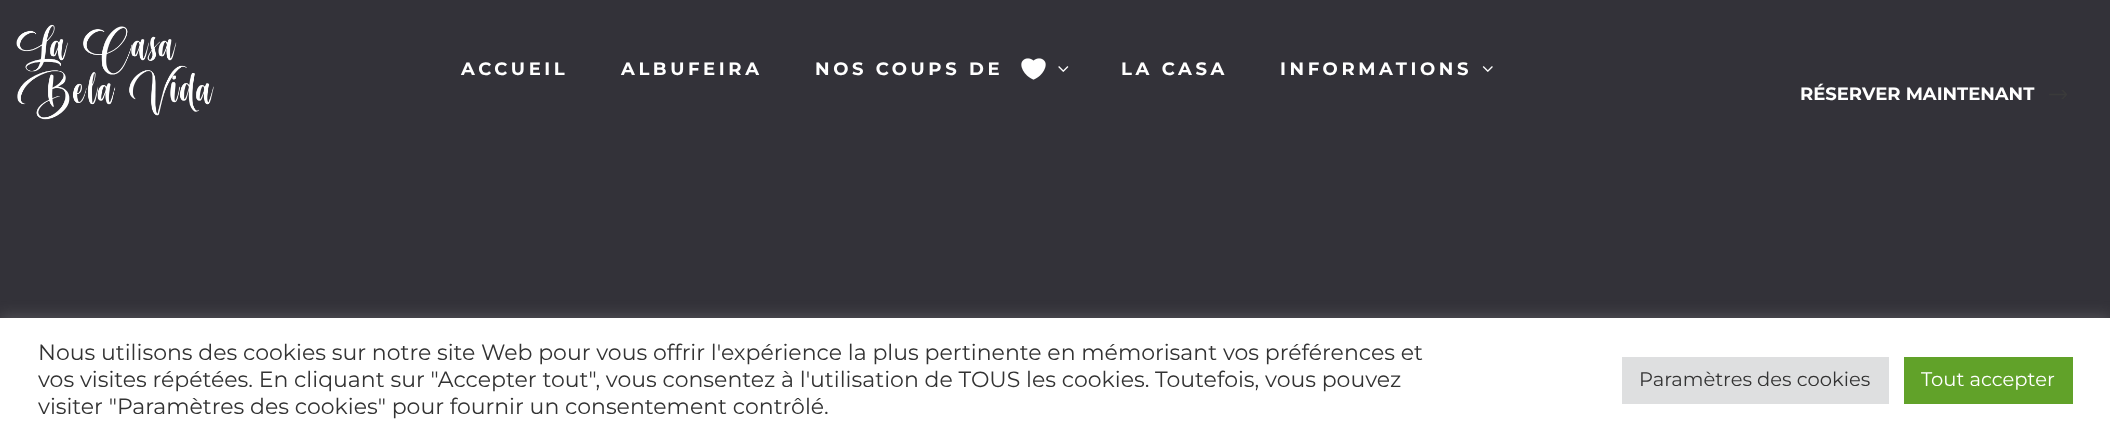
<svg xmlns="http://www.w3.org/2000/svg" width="2110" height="440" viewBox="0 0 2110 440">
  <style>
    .t1 { font: bold 18px Montserrat; letter-spacing: 3.6px; fill: #fff; }
    .t2 { font: bold 18px Montserrat; fill: #fff; }
    .t3 { font: 22px Montserrat; fill: #333; }
    .t4 { font: 19.5px Montserrat; fill: #333; }
    .t5 { font: 19.5px Montserrat; fill: #fff; }
  </style>
  <rect width="100%" height="100%" fill="#333239"/>
  <image x="16" y="24" width="198" height="96" href="images/1.png"/>
  <text x="461" y="75" class="t1">ACCUEIL</text>
  <text x="621" y="75" class="t1">ALBUFEIRA</text>
  <text x="815" y="75" class="t1">NOS COUPS DE</text>
  <image x="1021" y="58" width="25" height="22" href="images/2.png"/>
  <image x="1058" y="66" width="11" height="6" href="images/3.png"/>
  <text x="1121" y="75" class="t1">LA CASA</text>
  <text x="1280" y="75" class="t1">INFORMATIONS</text>
  <image x="1482" y="66" width="11" height="6" href="images/4.png"/>
  <text x="1800" y="100" class="t2">RÉSERVER MAINTENANT</text>
  <image x="2049" y="90" width="18" height="9" href="images/5.png"/>
  <rect x="0" y="317" width="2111" height="123" fill="#acabab4d" filter="blur(7.5px)"/>
  <rect x="0" y="318" width="2110" height="122" fill="#fff"/>
  <text x="38" y="360" class="t3">Nous utilisons des cookies sur notre site Web pour vous offrir l'expérience la plus pertinente en mémorisant vos préférences et</text>
  <text x="38" y="387" class="t3">vos visites répétées. En cliquant sur "Accepter tout", vous consentez à l'utilisation de TOUS les cookies. Toutefois, vous pouvez</text>
  <text x="38" y="414" class="t3">visiter "Paramètres des cookies" pour fournir un consentement contrôlé.</text>
  <rect x="1622" y="357" width="267" height="47" fill="#dedfe0"/>
  <text x="1639" y="386" class="t4">Paramètres des cookies</text>
  <rect x="1904" y="357" width="169" height="47" fill="#61a229"/>
  <text x="1921" y="386" class="t5">Tout accepter</text>
</svg>
